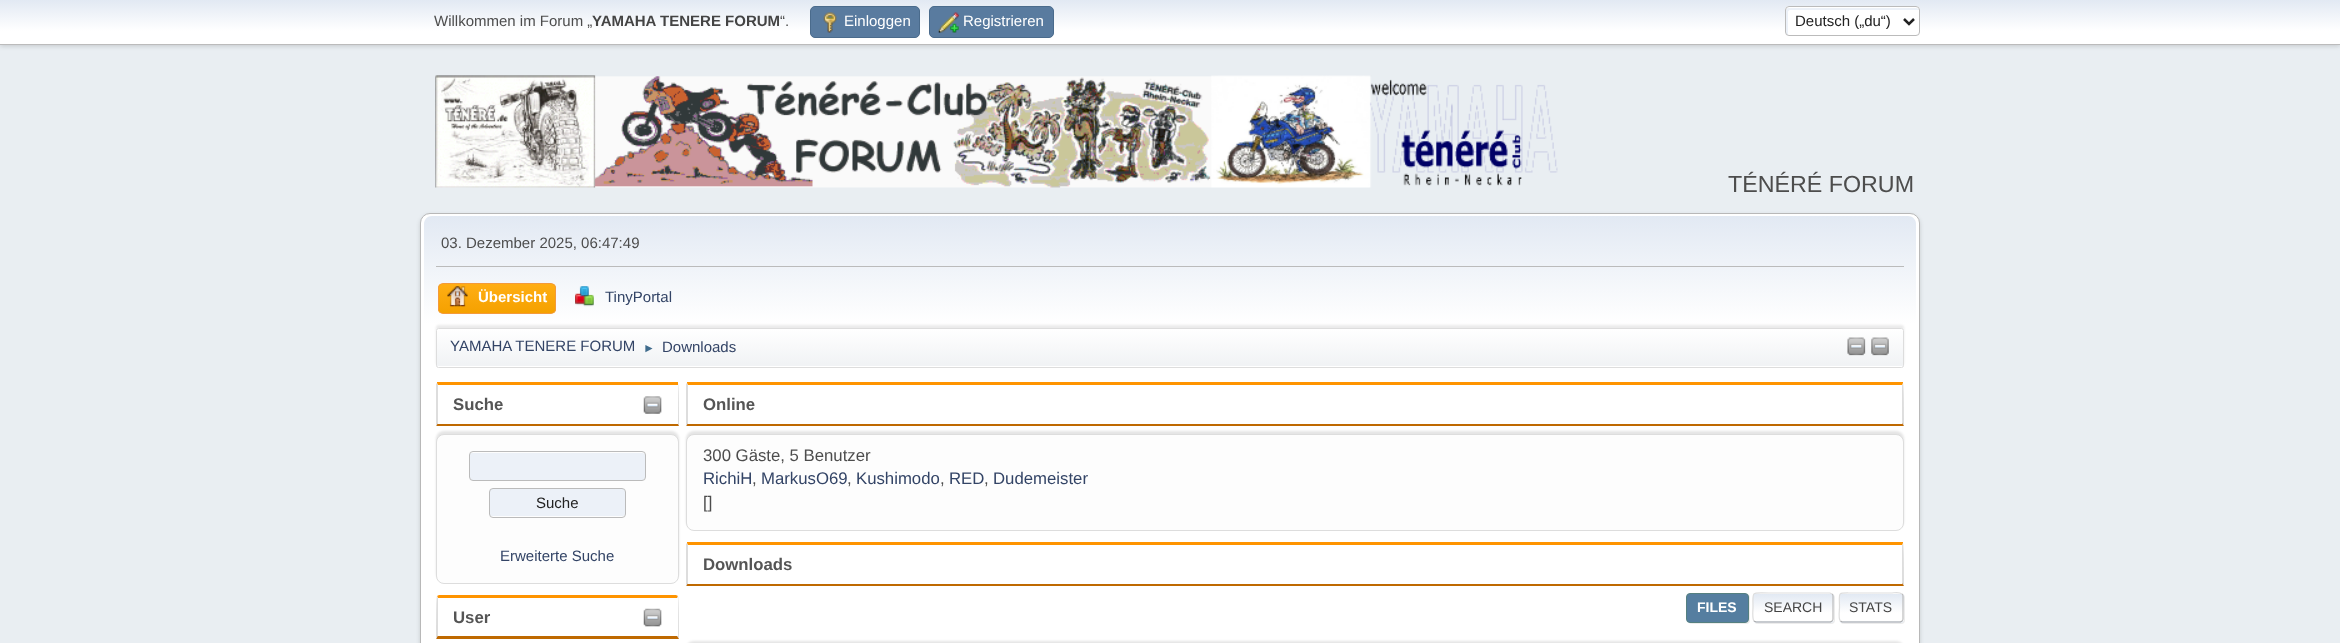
<svg xmlns="http://www.w3.org/2000/svg" width="2340" height="643" viewBox="0 0 2340 643">
  <style>
    .t1 { font: 15px Liberation Sans; fill: #4d4d4d; }
    .t2 { font: bold 15px Liberation Sans; fill: #444; }
    .t3 { font: 15px Liberation Sans; fill: #fff; }
    .t4 { font: 15px Liberation Sans; fill: #222; }
    .t5 { font: 23.25px Liberation Sans; fill: #4d4d4d; }
    .t6 { font: bold 15px Liberation Sans; fill: #fff; }
    .t7 { font: 15px Liberation Sans; fill: #346; }
    .t8 { font: 12px Liberation Sans; fill: #3f6b8c; }
    .t9 { font: bold 16.75px Liberation Sans; fill: #555; }
    .t10 { font: 16.75px Liberation Sans; fill: #4d4d4d; }
    .t11 { font: 16.75px Liberation Sans; fill: #346; }
    .t12 { font: bold 14px Liberation Sans; fill: #fff; }
    .t13 { font: 14px Liberation Sans; fill: #444; }
  </style>
  <defs>
    <linearGradient id="g1" gradientUnits="userSpaceOnUse" x1="1170" y1="0" x2="1170" y2="44"><stop offset="0" stop-color="#e2e9f3"/><stop offset="0.7" stop-color="#fff"/></linearGradient>
    <linearGradient id="g2" gradientUnits="userSpaceOnUse" x1="1170" y1="216" x2="1170" y2="370"><stop offset="0" stop-color="#e2e9f3"/><stop offset="0.7" stop-color="#fff"/></linearGradient>
    <clipPath id="clip1"><rect x="438" y="283" width="118" height="31" rx="5"/></clipPath>
    <linearGradient id="g3" gradientUnits="userSpaceOnUse" x1="497" y1="284" x2="497" y2="313"><stop offset="0" stop-color="#ffae14"/><stop offset="1" stop-color="#f5a100"/></linearGradient>
    <linearGradient id="g4" gradientUnits="userSpaceOnUse" x1="1170" y1="329" x2="1170" y2="366"><stop offset="0" stop-color="#fff"/><stop offset="0.95" stop-color="#f1f3f5"/></linearGradient>
    <clipPath id="clip2"><rect x="1753" y="593" width="81" height="30" rx="4"/></clipPath>
    <linearGradient id="g5" gradientUnits="userSpaceOnUse" x1="1793" y1="594" x2="1793" y2="621"><stop offset="0" stop-color="#e2e9f3"/><stop offset="0.7" stop-color="#fff"/></linearGradient>
    <linearGradient id="g6" gradientUnits="userSpaceOnUse" x1="1793" y1="621" x2="1793" y2="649"><stop offset="0" stop-color="#e2e9f3"/><stop offset="0.7" stop-color="#fff"/></linearGradient>
    <clipPath id="clip3"><rect x="1839" y="593" width="65" height="30" rx="4"/></clipPath>
    <linearGradient id="g7" gradientUnits="userSpaceOnUse" x1="1871" y1="594" x2="1871" y2="621"><stop offset="0" stop-color="#e2e9f3"/><stop offset="0.7" stop-color="#fff"/></linearGradient>
    <linearGradient id="g8" gradientUnits="userSpaceOnUse" x1="1871" y1="621" x2="1871" y2="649"><stop offset="0" stop-color="#e2e9f3"/><stop offset="0.7" stop-color="#fff"/></linearGradient>
  </defs>
  <rect width="100%" height="100%" fill="#e9eef2"/>
  <rect x="0" y="1" width="2340" height="45" fill="#00000029" filter="blur(2.5px)"/>
  <rect x="0" y="0" width="2340" height="44" fill="url(#g1)"/>
  <rect x="0" y="44" width="2340" height="1" fill="#bbb"/>
  <text x="434" y="26" class="t1">Willkommen im Forum „</text>
  <text x="592" y="26" class="t2">YAMAHA TENERE FORUM</text>
  <text x="780" y="26" class="t1">“.</text>
  <rect x="810.5" y="6.5" width="109" height="31" rx="4.5" fill="#597b9f" stroke="#4a6b8c"/>
  <image x="823" y="12" width="14" height="21" href="images/1.png"/>
  <text x="844" y="26" class="t3">Einloggen</text>
  <rect x="929.5" y="6.5" width="124" height="31" rx="4.5" fill="#597b9f" stroke="#4a6b8c"/>
  <image x="938" y="12" width="21" height="21" href="images/2.png"/>
  <text x="963" y="26" class="t3">Registrieren</text>
  <rect x="1785" y="6" width="135" height="30" rx="4" fill="#fff"/>
  <path d="M1790 10H1919C1919 9 1918 8 1916 8H1788C1787 8 1786 9 1786 10V32C1786 34 1787 35 1788 35V12C1788 11 1789 10 1790 10Z" fill="#ecf1f8"/>
  <rect x="1785.5" y="6.5" width="134" height="29" rx="3.5" fill="none" stroke="#bbb"/>
  <path d="M1904 19L1909 24L1914 19" fill="none" stroke="#222" stroke-width="2.5"/>
  <text x="1795" y="26" class="t4">Deutsch („du“)</text>
  <image x="435" y="75" width="1123" height="113" href="images/3.png"/>
  <text x="1728" y="192" class="t5">TÉNÉRÉ FORUM</text>
  <rect x="420" y="215" width="1500" height="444" rx="10" fill="#00000024" filter="blur(2px)"/>
  <rect x="420.5" y="213.5" width="1499" height="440" rx="9.5" fill="#fff" stroke="#b8b8b8"/>
  <path d="M432 216H1908C1912.5 216 1916 219.5 1916 224V370H424V224C424 219.5 427.5 216 432 216Z" fill="url(#g2)"/>
  <rect x="436" y="266" width="1468" height="1" fill="#bbb"/>
  <text x="441" y="248" class="t1">03. Dezember 2025, 06:47:49</text>
  <g clip-path="url(#clip1)">
    <rect x="438" y="284" width="118" height="29" fill="url(#g3)"/>
  </g>
  <rect x="438.5" y="283.5" width="117" height="30" rx="4.5" fill="none" stroke="#f49a3a"/>
  <image x="447" y="286" width="21" height="21" href="images/4.png"/>
  <text x="478" y="302" class="t6">Übersicht</text>
  <image x="575" y="286" width="19" height="21" href="images/5.png"/>
  <text x="605" y="302" class="t7">TinyPortal</text>
  <rect x="436" y="325" width="1468" height="40" rx="2.5" fill="#00000014" filter="blur(1px)"/>
  <rect x="436" y="328" width="1468" height="40" rx="2.5" fill="#fff"/>
  <rect x="436" y="329" width="1468" height="37" fill="url(#g4)"/>
  <rect x="436.5" y="328.5" width="1467" height="39" rx="2" fill="none" stroke="#ddd"/>
  <text x="450" y="351" class="t7">YAMAHA TENERE FORUM</text>
  <text x="643" y="352" class="t8">►</text>
  <text x="662" y="352" class="t7">Downloads</text>
  <image x="1847" y="337" width="19" height="19" href="images/6.png"/>
  <image x="1871" y="337" width="18" height="19" href="images/7.png"/>
  <path d="M437 383V382H678V383V385H438V386Z" fill="#ff9400"/>
  <path d="M679 426L678 424V385V383C679 385 679 421 679 426Z" fill="#ddd"/>
  <path d="M679 426H436L438 423V424H678Z" fill="#bf6900"/>
  <path d="M436 384L437 383L438 386V423L436 426Z" fill="#ddd"/>
  <text x="453" y="410" class="t9">Suche</text>
  <image x="643" y="396" width="19" height="18" href="images/8.png"/>
  <rect x="436" y="431" width="243" height="150" rx="8" fill="#0000001a" filter="blur(1px)"/>
  <rect x="436.5" y="434.5" width="242" height="149" rx="7.5" fill="#fdfdfd" stroke="#ddd"/>
  <path d="M472 453C468 453 470 461 470 463V474C470 476 469 480 472 480H642C647 480 645 472 645 470V455C645 454 644 453 642 453Z" fill="#ecf1f8"/>
  <rect x="469.5" y="451.5" width="176" height="29" rx="3.5" fill="none" stroke="#bbb"/>
  <path d="M492 489C488 489 490 497 490 499V510C490 512 489 516 492 516H622C626 516 625 512 625 510V495C625 493 626 489 622 489Z" fill="#ecf1f8"/>
  <rect x="489.5" y="488.5" width="136" height="29" rx="3.5" fill="none" stroke="#bbb"/>
  <text x="536" y="508" class="t4">Suche</text>
  <text x="500" y="561" class="t7">Erweiterte Suche</text>
  <path d="M439 595L437 596L438 598H677L678 596L676 595Z" fill="#ff9400"/>
  <path d="M678 596C679 597 679 634 679 639L677 636H678V598H677Z" fill="#ddd"/>
  <path d="M679 639L677 636H438V635L436 639Z" fill="#bf6900"/>
  <path d="M436 639C436 634 436 597 437 596L438 598V635Z" fill="#ddd"/>
  <text x="453" y="623" class="t9">User</text>
  <image x="643" y="608" width="19" height="19" href="images/9.png"/>
  <path d="M687 383V382H1903V383L1902 386V385H688V386Z" fill="#ff9400"/>
  <path d="M1904 426L1902 423V386L1903 383C1904 385 1904 421 1904 426Z" fill="#ddd"/>
  <path d="M1904 426H686L688 423V424H1902V423Z" fill="#bf6900"/>
  <path d="M686 384L687 383L688 386V423L686 426Z" fill="#ddd"/>
  <text x="703" y="410" class="t9">Online</text>
  <rect x="686" y="431" width="1218" height="98" rx="8" fill="#0000001a" filter="blur(1px)"/>
  <rect x="686.5" y="434.5" width="1217" height="96" rx="7.5" fill="#fdfdfd" stroke="#ddd"/>
  <text x="703" y="461" class="t10">300 Gäste, 5 Benutzer</text>
  <text x="703" y="484" class="t11">RichiH</text>
  <text x="761" y="484" class="t11">MarkusO69</text>
  <text x="856" y="484" class="t11">Kushimodo</text>
  <text x="949" y="484" class="t11">RED</text>
  <text x="993" y="484" class="t11">Dudemeister</text>
  <text x="752" y="484" class="t10">,</text>
  <text x="847" y="484" class="t10">,</text>
  <text x="940" y="484" class="t10">,</text>
  <text x="984" y="484" class="t10">,</text>
  <text x="703" y="508" class="t10">[]</text>
  <path d="M687 543V542H1903V543L1902 546V545H688V546Z" fill="#ff9400"/>
  <path d="M1904 586L1902 583V546L1903 543C1904 545 1904 581 1904 586Z" fill="#ddd"/>
  <path d="M1904 586H686L688 583V584H1902V583Z" fill="#bf6900"/>
  <path d="M686 544L687 543L688 546V583L686 586Z" fill="#ddd"/>
  <text x="703" y="570" class="t9">Downloads</text>
  <rect x="1688" y="594" width="62" height="30" rx="4" fill="#dddddd91" filter="blur(0.5px)"/>
  <rect x="1686.5" y="593.5" width="62" height="29" rx="3.5" fill="#557ea0" stroke="#558080"/>
  <text x="1697" y="612" class="t12">FILES</text>
  <rect x="1754" y="594" width="81" height="30" rx="4" fill="#dddddd91" filter="blur(0.5px)"/>
  <rect x="1753" y="593" width="81" height="30" rx="4" fill="#fff"/>
  <g clip-path="url(#clip2)">
    <rect x="1753" y="594" width="81" height="27" fill="url(#g5)"/>
    <rect x="1753" y="621" width="81" height="2" fill="url(#g6)"/>
  </g>
  <path d="M1832 594C1833 594.5 1833 595.5 1833 596V619C1833 619.5 1833 620.5 1832 621" fill="none" stroke="#bbb" stroke-width="1.2"/>
  <path d="M1832 621L1830.5 622H1756L1754 621" fill="none" stroke="#aaa" stroke-width="1.2"/>
  <path d="M1754 621C1752 619 1753 610 1753 607.5C1753 590.5 1750.5 593 1768.5 593H1830L1832 594" fill="none" stroke="#ddd" stroke-width="1.2"/>
  <text x="1764" y="612" class="t13">SEARCH</text>
  <rect x="1840" y="594" width="65" height="30" rx="4" fill="#dddddd91" filter="blur(0.5px)"/>
  <rect x="1839" y="593" width="65" height="30" rx="4" fill="#fff"/>
  <g clip-path="url(#clip3)">
    <rect x="1839" y="594" width="65" height="27" fill="url(#g7)"/>
    <rect x="1839" y="621" width="65" height="2" fill="url(#g8)"/>
  </g>
  <path d="M1902 594C1903 594.5 1903 595.5 1903 596V619C1903 619.5 1903 620.5 1902 621" fill="none" stroke="#bbb" stroke-width="1.2"/>
  <path d="M1902 621L1900.5 622H1842L1840.5 621" fill="none" stroke="#aaa" stroke-width="1.2"/>
  <path d="M1840.5 621C1838 619 1839.5 610 1839.5 607.5C1839.5 591.5 1836.5 593 1852 593H1890.5C1894.5 593 1899 591.5 1902 594" fill="none" stroke="#ddd" stroke-width="1.2"/>
  <text x="1849" y="612" class="t13">STATS</text>
  <rect x="686" y="641" width="1218" height="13" rx="8" fill="#0000001a" filter="blur(1px)"/>
</svg>
